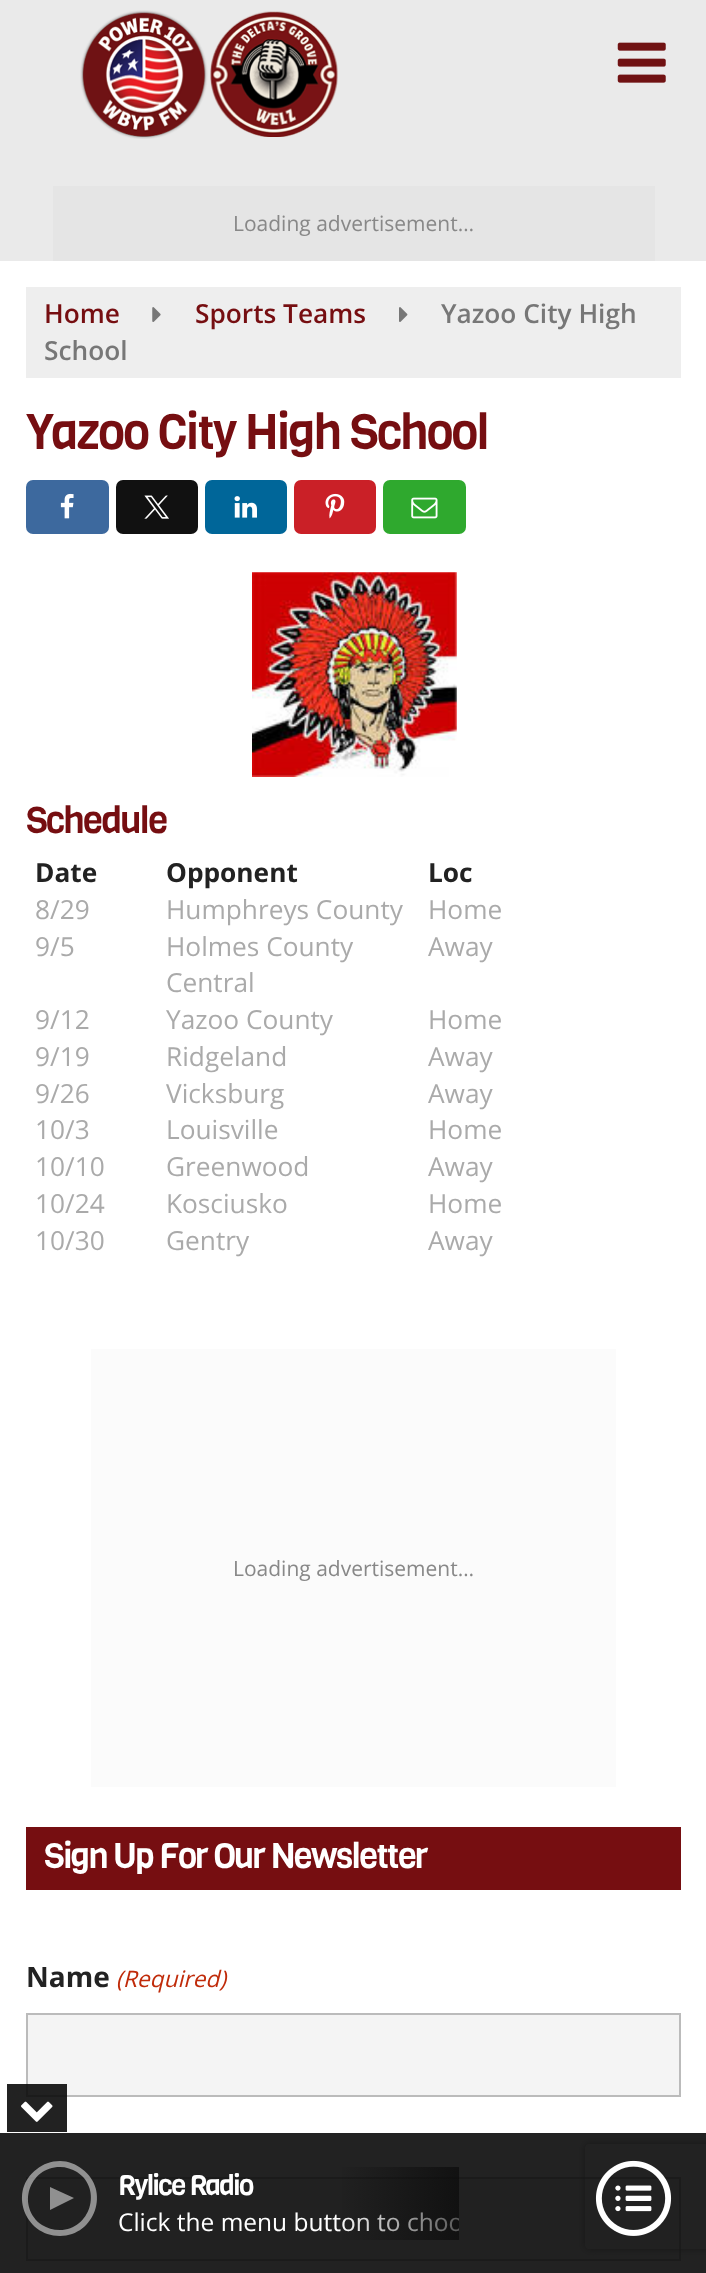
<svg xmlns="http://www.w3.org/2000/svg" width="706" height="2273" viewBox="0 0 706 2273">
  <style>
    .t1 { font: 21px Open Sans; fill: #888; }
    .t2 { font: 600 26.25px Open Sans; fill: #760e11; }
    .t3 { font: 600 26.25px Open Sans; fill: #777; }
    .t4 { font: 49px Viga; letter-spacing: -1.75px; fill: #760e11; }
    .t5 { font: 37px Viga; letter-spacing: -1.75px; fill: #760e11; }
    .t6 { font: bold 26.25px Open Sans; fill: #222; }
    .t7 { font: 26.25px Open Sans; fill: #aaa; }
    .t8 { font: 35px Viga; letter-spacing: -1.75px; fill: #fff; }
    .t9 { font: bold 28px Open Sans; fill: #222; }
    .t10 { font: italic 22.75px Open Sans; fill: #c02b0a; }
    .t11 { font: 28px Viga; letter-spacing: -1.75px; fill: #fff; }
    .t12 { font: 24.5px Open Sans; fill: #fff; }
  </style>
  <defs>
    <clipPath id="clip1"><path d="M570 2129H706V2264H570ZM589 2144H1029C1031 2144 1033 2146 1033 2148V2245C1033 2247 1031 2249 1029 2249H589C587 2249 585 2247 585 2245V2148C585 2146 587 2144 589 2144Z" clip-rule="evenodd"/></clipPath>
    <clipPath id="clip2"><rect x="117" y="2167" width="342" height="73"/></clipPath>
    <linearGradient id="g1" gradientUnits="userSpaceOnUse" x1="336" y1="2203" x2="459" y2="2203"><stop offset="0" stop-color="#0a0a0a" stop-opacity="0"/><stop offset="1" stop-color="#0a0a0a" stop-opacity="0.68"/></linearGradient>
  </defs>
  <rect width="100%" height="100%" fill="#fff"/>
  <rect x="0" y="0" width="706" height="261" fill="#eaeaea"/>
  <image x="617" y="42" width="49" height="41" href="images/1.png"/>
  <image x="80" y="10" width="128" height="129" href="images/2.png"/>
  <image x="210" y="11" width="128" height="126" href="images/3.png"/>
  <rect x="53" y="186" width="602" height="75" fill="#e5e5e5"/>
  <text x="233" y="231" class="t1">Loading advertisement…</text>
  <rect x="26" y="287" width="655" height="91" fill="#eee"/>
  <text x="44" y="323" class="t2">Home</text>
  <image x="152" y="307" width="9" height="15" href="images/4.png"/>
  <text x="195" y="323" class="t2">Sports Teams</text>
  <image x="399" y="307" width="9" height="15" href="images/5.png"/>
  <text x="441" y="323" class="t3">Yazoo City High</text>
  <text x="44" y="360" class="t3">School</text>
  <text x="26" y="449" class="t4">Yazoo City High School</text>
  <rect x="26" y="480" width="83" height="54" rx="7" fill="#3d699e"/>
  <image x="60" y="493" width="14" height="26" href="images/6.png"/>
  <rect x="116" y="480" width="82" height="54" rx="7" fill="#111"/>
  <image x="144" y="495" width="25" height="24" href="images/7.png"/>
  <rect x="205" y="480" width="82" height="54" rx="7" fill="#069"/>
  <image x="234" y="496" width="23" height="22" href="images/8.png"/>
  <rect x="294" y="480" width="82" height="54" rx="7" fill="#ca2027"/>
  <image x="325" y="493" width="20" height="26" href="images/9.png"/>
  <rect x="383" y="480" width="83" height="54" rx="7" fill="#2fa92e"/>
  <image x="411" y="497" width="27" height="22" href="images/10.png"/>
  <image x="252" y="572" width="205" height="205" href="images/11.png"/>
  <text x="26" y="833" class="t5">Schedule</text>
  <text x="35" y="882" class="t6">Date</text>
  <text x="166" y="882" class="t6">Opponent</text>
  <text x="428" y="882" class="t6">Loc</text>
  <text x="35" y="919" class="t7">8/29</text>
  <text x="166" y="919" class="t7">Humphreys County</text>
  <text x="428" y="919" class="t7">Home</text>
  <text x="35" y="956" class="t7">9/5</text>
  <text x="166" y="956" class="t7">Holmes County</text>
  <text x="166" y="992" class="t7">Central</text>
  <text x="428" y="956" class="t7">Away</text>
  <text x="35" y="1029" class="t7">9/12</text>
  <text x="166" y="1029" class="t7">Yazoo County</text>
  <text x="428" y="1029" class="t7">Home</text>
  <text x="35" y="1066" class="t7">9/19</text>
  <text x="166" y="1066" class="t7">Ridgeland</text>
  <text x="428" y="1066" class="t7">Away</text>
  <text x="35" y="1103" class="t7">9/26</text>
  <text x="166" y="1103" class="t7">Vicksburg</text>
  <text x="428" y="1103" class="t7">Away</text>
  <text x="35" y="1139" class="t7">10/3</text>
  <text x="166" y="1139" class="t7">Louisville</text>
  <text x="428" y="1139" class="t7">Home</text>
  <text x="35" y="1176" class="t7">10/10</text>
  <text x="166" y="1176" class="t7">Greenwood</text>
  <text x="428" y="1176" class="t7">Away</text>
  <text x="35" y="1213" class="t7">10/24</text>
  <text x="166" y="1213" class="t7">Kosciusko</text>
  <text x="428" y="1213" class="t7">Home</text>
  <text x="35" y="1250" class="t7">10/30</text>
  <text x="166" y="1250" class="t7">Gentry</text>
  <text x="428" y="1250" class="t7">Away</text>
  <rect x="91" y="1349" width="525" height="438" fill="#fbfbfb"/>
  <text x="233" y="1576" class="t1">Loading advertisement…</text>
  <rect x="26" y="1827" width="655" height="63" fill="#760e11"/>
  <text x="44" y="1868" class="t8">Sign Up For Our Newsletter</text>
  <text x="26" y="1987" class="t9">Name</text>
  <text x="116" y="1987" class="t10">(Required)</text>
  <rect x="27" y="2014" width="653" height="82" fill="#f4f4f4" stroke="#bbb" stroke-width="2"/>
  <rect x="27" y="2178" width="653" height="82" fill="#f4f4f4" stroke="#bbb" stroke-width="2"/>
  <g clip-path="url(#clip1)">
    <rect x="585" y="2144" width="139" height="105" rx="4" fill="#808080" filter="blur(4.5px)"/>
  </g>
  <rect x="0" y="2133" width="706" height="140" fill="#0a0a0ae6"/>
  <rect x="7" y="2084" width="60" height="48" fill="#0a0a0ae6"/>
  <image x="21" y="2101" width="32" height="21" href="images/12.png"/>
  <path d="M60 2161C51 2161 43 2164 37 2169C8 2190 24 2236 60 2236C95 2236 111 2190 82 2169C76 2164 68 2161 60 2161ZM60 2230C53 2230 47 2228 42 2225C16 2207 29 2167 60 2167C66 2167 72 2169 77 2172C103 2189 90 2230 60 2230ZM50 2210L74 2198L50 2187Z" fill="#ffffff80"/>
  <text x="118" y="2195" class="t11">Rylice Radio</text>
  <g clip-path="url(#clip2)">
    <text x="118" y="2231" class="t12">Click the menu button to choo</text>
  </g>
  <rect x="342" y="2167" width="117" height="73" fill="url(#g1)"/>
  <image x="595" y="2160" width="77" height="76" href="images/13.png"/>
</svg>
